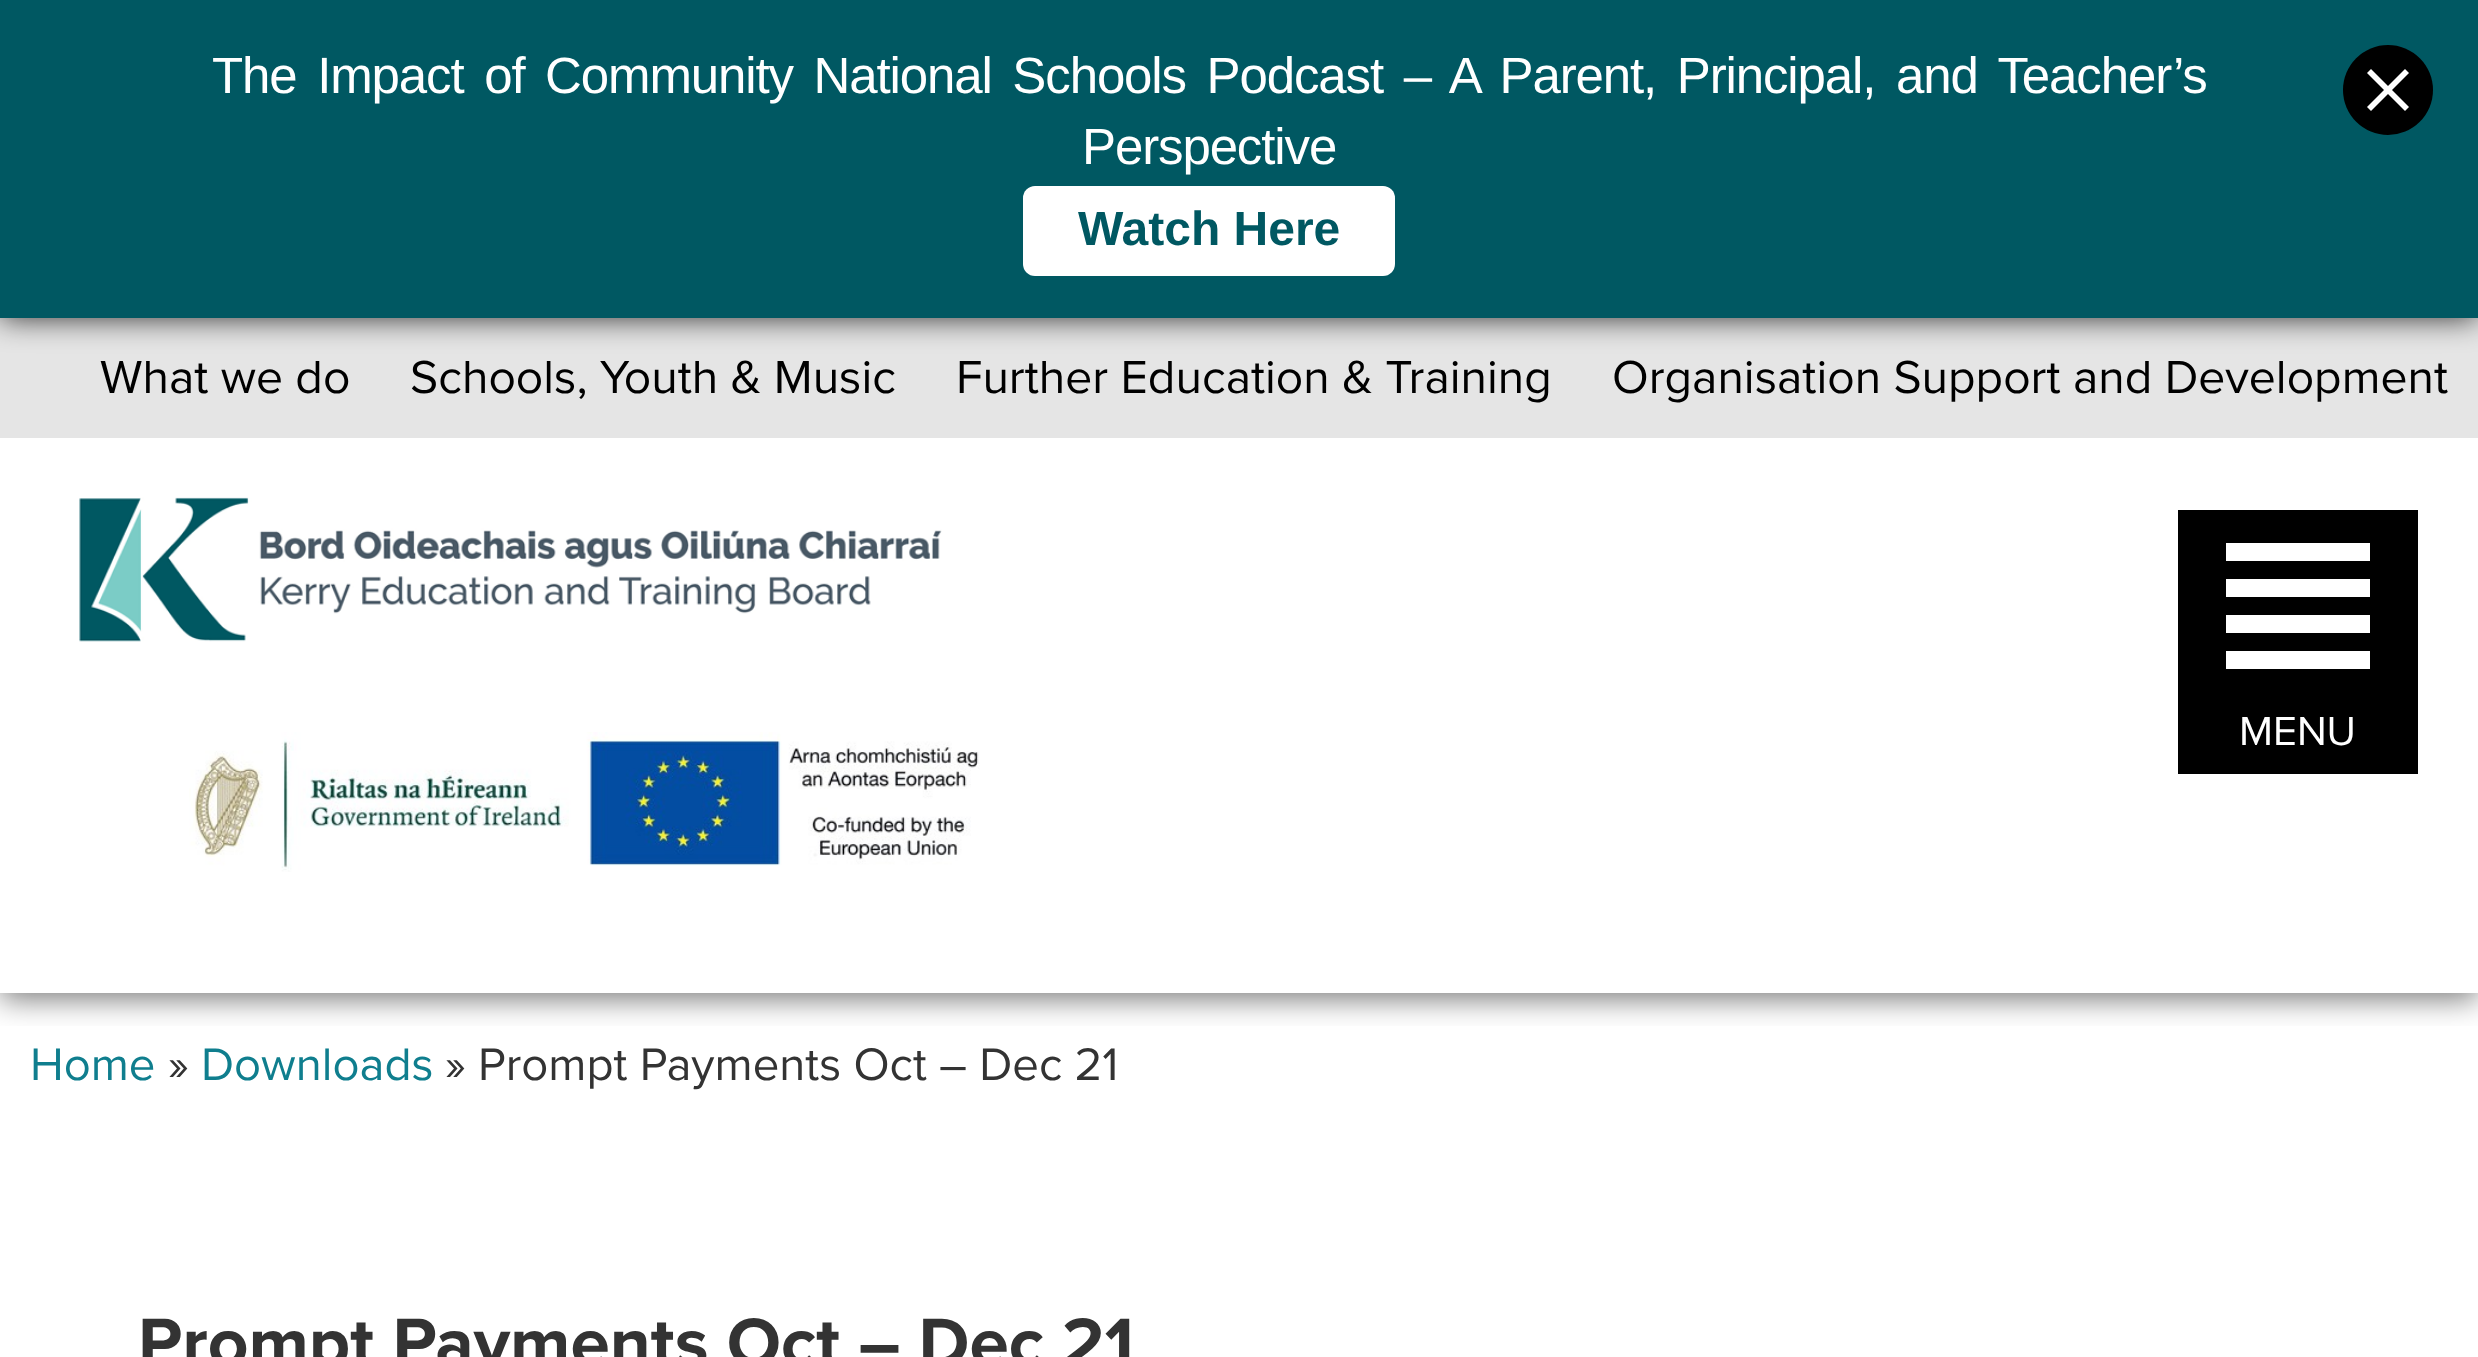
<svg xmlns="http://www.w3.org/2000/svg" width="2478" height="1357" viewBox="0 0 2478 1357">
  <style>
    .t1 { font: 51px Liberation Sans; letter-spacing: -1.12px; fill: #fff; }
    .t2 { font: bold 48px Liberation Sans; fill: #005862; }
    .t3 { font: 48px Proxima Nova; fill: #000; }
    .t4 { font: 42px Proxima Nova; fill: #fff; }
    .t5 { font: 47.25px Proxima Nova; fill: #0f7e8e; }
    .t6 { font: 47.25px Proxima Nova; fill: #333; }
    .t7 { font: bold 70.9px Proxima Nova; fill: #333; }
  </style>
  <defs>
    <clipPath id="clip1"><rect x="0" y="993" width="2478" height="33"/></clipPath>
  </defs>
  <rect width="100%" height="100%" fill="#fff"/>
  <g clip-path="url(#clip1)">
    <rect x="0" y="324" width="2478" height="675" fill="#00000085" filter="blur(15px)"/>
  </g>
  <rect x="0" y="318" width="2478" height="120" fill="#e5e5e5"/>
  <rect x="0" y="0" width="2478" height="318" fill="#000000cc" filter="blur(15px)"/>
  <rect x="0" y="0" width="2478" height="318" fill="#005862"/>
  <text x="212" y="93" word-spacing="7.6" class="t1">The Impact of Community National Schools Podcast – A Parent, Principal, and Teacher’s</text>
  <text x="1082" y="164" class="t1">Perspective</text>
  <circle cx="2388" cy="90" r="45" fill="#000"/>
  <path d="M2409 73L2405 69L2388 86L2371 69L2367 73L2384 90L2367 107L2371 111L2388 94L2405 111L2409 107L2392 90Z" fill="#fff"/>
  <rect x="1023" y="186" width="372" height="90" rx="12" fill="#fff"/>
  <text x="1078" y="245" class="t2">Watch Here</text>
  <text x="100" y="393" class="t3">What we do</text>
  <text x="410" y="393" class="t3">Schools, Youth &amp; Music</text>
  <text x="956" y="393" class="t3">Further Education &amp; Training</text>
  <text x="1612" y="393" class="t3">Organisation Support and Development</text>
  <image x="79" y="497" width="863" height="145" href="images/1.png"/>
  <image x="189" y="732" width="791" height="140" href="images/2.png"/>
  <rect x="2178" y="510" width="240" height="264" fill="#000"/>
  <path d="M2226 543H2370V561H2226ZM2226 579H2370V597H2226ZM2226 615H2370V633H2226ZM2226 651H2370V669H2226Z" fill="#fff"/>
  <text x="2239" y="745" class="t4">MENU</text>
  <text x="30" y="1080" class="t5">Home</text>
  <text x="168" y="1080" class="t6">»</text>
  <text x="201" y="1080" class="t5">Downloads</text>
  <text x="445" y="1080" class="t6">» Prompt Payments Oct – Dec 21</text>
  <text x="138" y="1366" class="t7">Prompt Payments Oct – Dec 21</text>
</svg>
